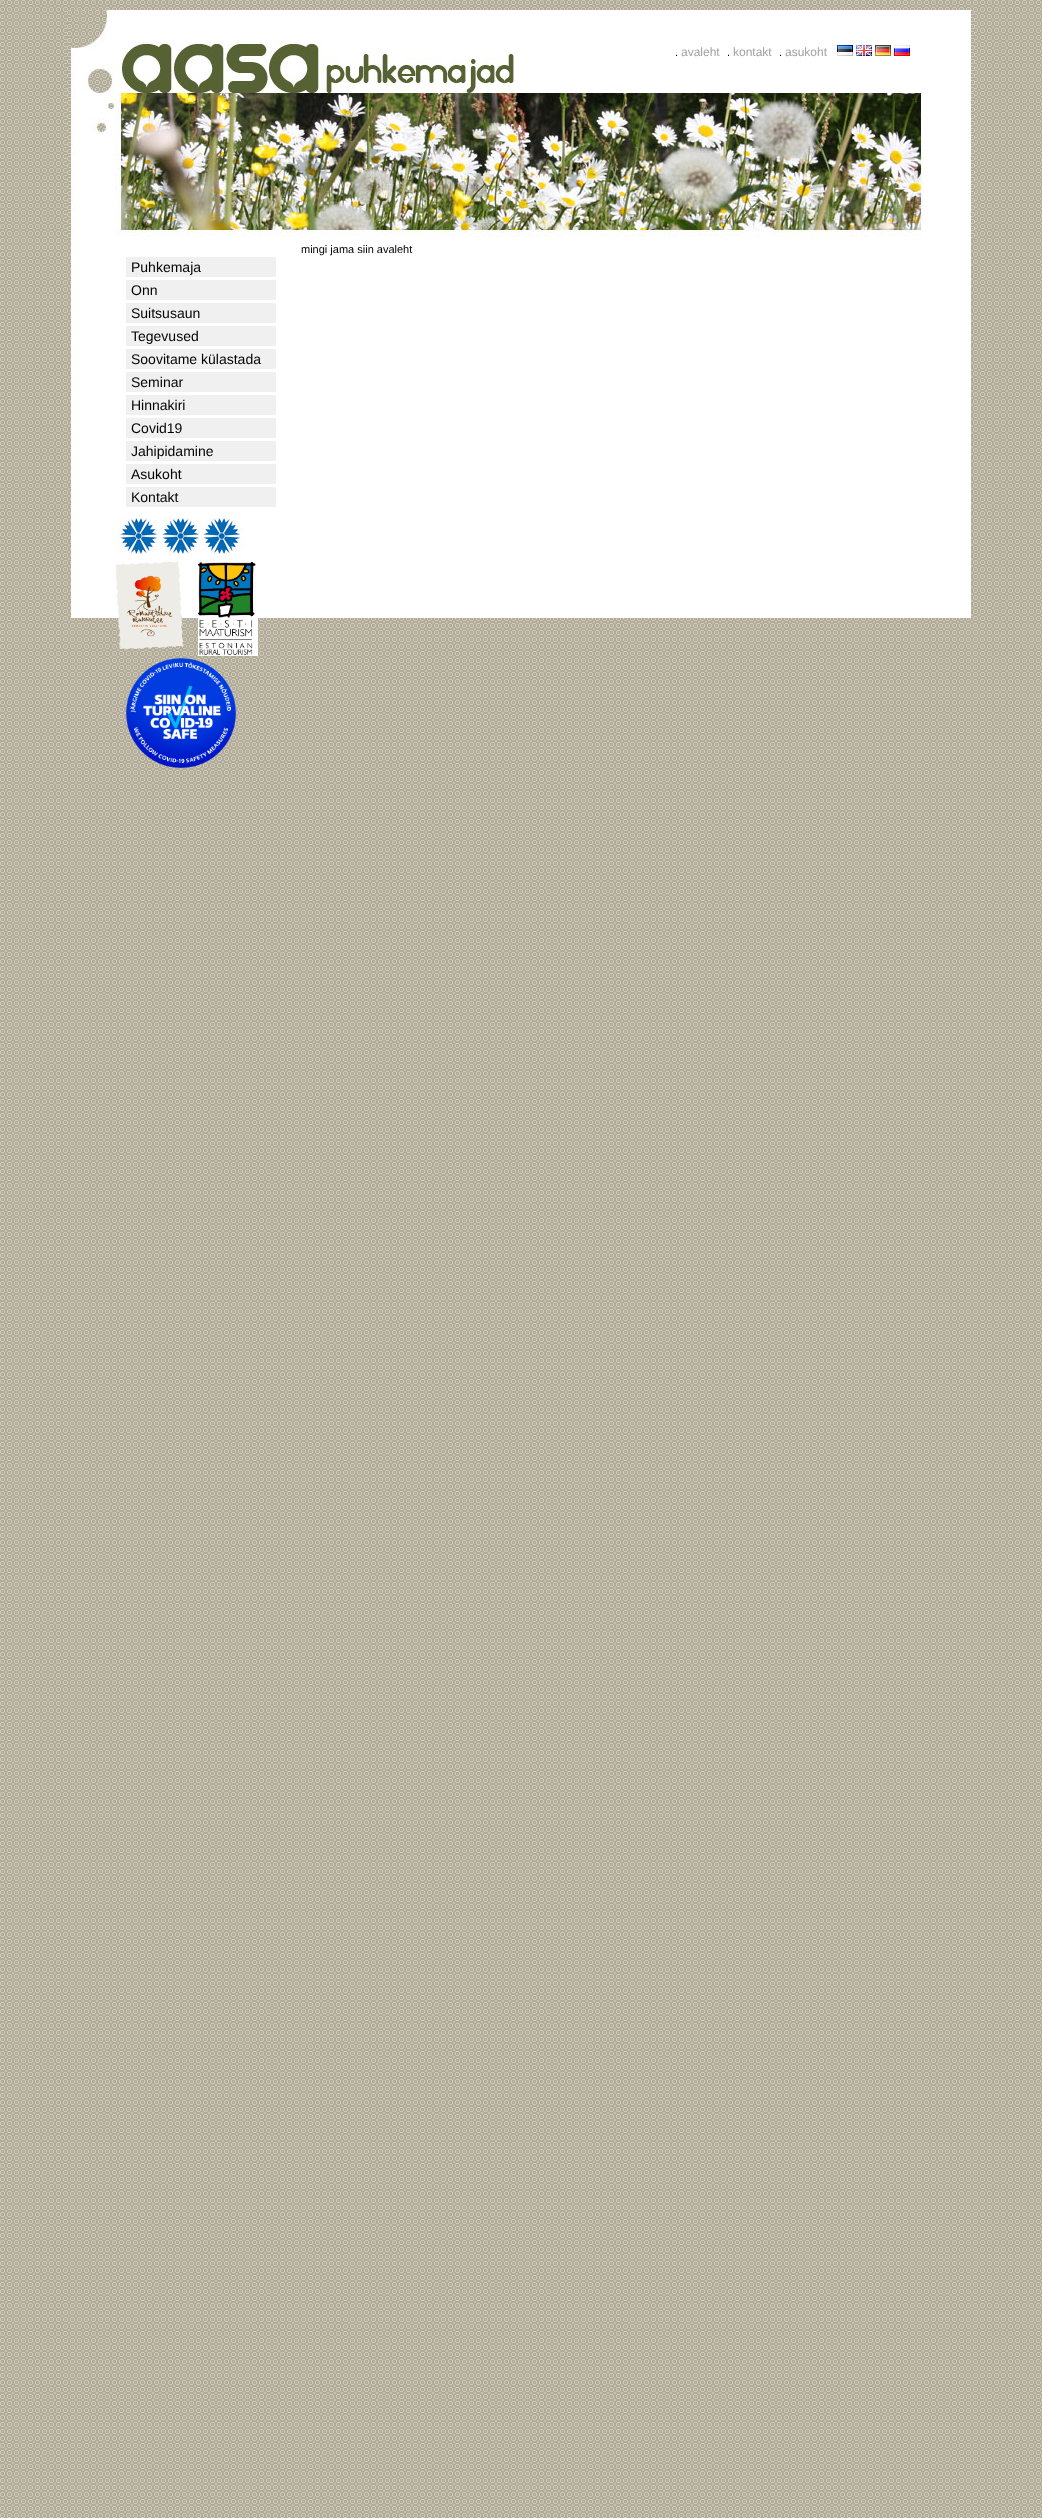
<svg xmlns="http://www.w3.org/2000/svg" width="1042" height="2518" viewBox="0 0 1042 2518">
  <style>
    .t1 { font: 11px Liberation Sans; fill: #000; }
    .t2 { font: 12px Liberation Sans; fill: #a1a1a1; }
    .t3 { font: 14px Liberation Sans; fill: #000; }
  </style>
  <rect width="100%" height="100%" fill="#fff"/>
  <image x="0" y="0" width="1042" height="2518" href="images/1.png"/>
  <image x="67" y="10" width="908" height="83" href="images/2.png"/>
  <text x="675" y="56" class="t1">.</text>
  <text x="681" y="56" class="t2">avaleht</text>
  <text x="727" y="56" class="t1">.</text>
  <text x="733" y="56" class="t2">kontakt</text>
  <text x="779" y="56" class="t1">.</text>
  <text x="785" y="56" class="t2">asukoht</text>
  <image x="837" y="45" width="16" height="11" href="images/3.png"/>
  <image x="856" y="45" width="16" height="11" href="images/4.png"/>
  <image x="875" y="45" width="16" height="11" href="images/5.png"/>
  <image x="894" y="45" width="16" height="11" href="images/6.png"/>
  <image x="67" y="93" width="908" height="147" href="images/7.png"/>
  <rect x="71" y="240" width="900" height="378" fill="#fff"/>
  <text x="301" y="253" class="t1">mingi jama siin avaleht</text>
  <rect x="126" y="257" width="150" height="20" fill="#f0f0f0"/>
  <text x="131" y="272" class="t3">Puhkemaja</text>
  <rect x="126" y="280" width="150" height="20" fill="#f0f0f0"/>
  <text x="131" y="295" class="t3">Onn</text>
  <rect x="126" y="303" width="150" height="20" fill="#f0f0f0"/>
  <text x="131" y="318" class="t3">Suitsusaun</text>
  <rect x="126" y="326" width="150" height="20" fill="#f0f0f0"/>
  <text x="131" y="341" class="t3">Tegevused</text>
  <rect x="126" y="349" width="150" height="20" fill="#f0f0f0"/>
  <text x="131" y="364" class="t3">Soovitame külastada</text>
  <rect x="126" y="372" width="150" height="20" fill="#f0f0f0"/>
  <text x="131" y="387" class="t3">Seminar</text>
  <rect x="126" y="395" width="150" height="20" fill="#f0f0f0"/>
  <text x="131" y="410" class="t3">Hinnakiri</text>
  <rect x="126" y="418" width="150" height="20" fill="#f0f0f0"/>
  <text x="131" y="433" class="t3">Covid19</text>
  <rect x="126" y="441" width="150" height="20" fill="#f0f0f0"/>
  <text x="131" y="456" class="t3">Jahipidamine</text>
  <rect x="126" y="464" width="150" height="20" fill="#f0f0f0"/>
  <text x="131" y="479" class="t3">Asukoht</text>
  <rect x="126" y="487" width="150" height="20" fill="#f0f0f0"/>
  <text x="131" y="502" class="t3">Kontakt</text>
  <image x="116" y="518" width="128" height="36" href="images/8.png"/>
  <image x="115" y="561" width="69" height="89" href="images/9.png"/>
  <image x="198" y="562" width="60" height="94" href="images/10.png"/>
  <image x="126" y="658" width="110" height="110" href="images/11.png"/>
</svg>
